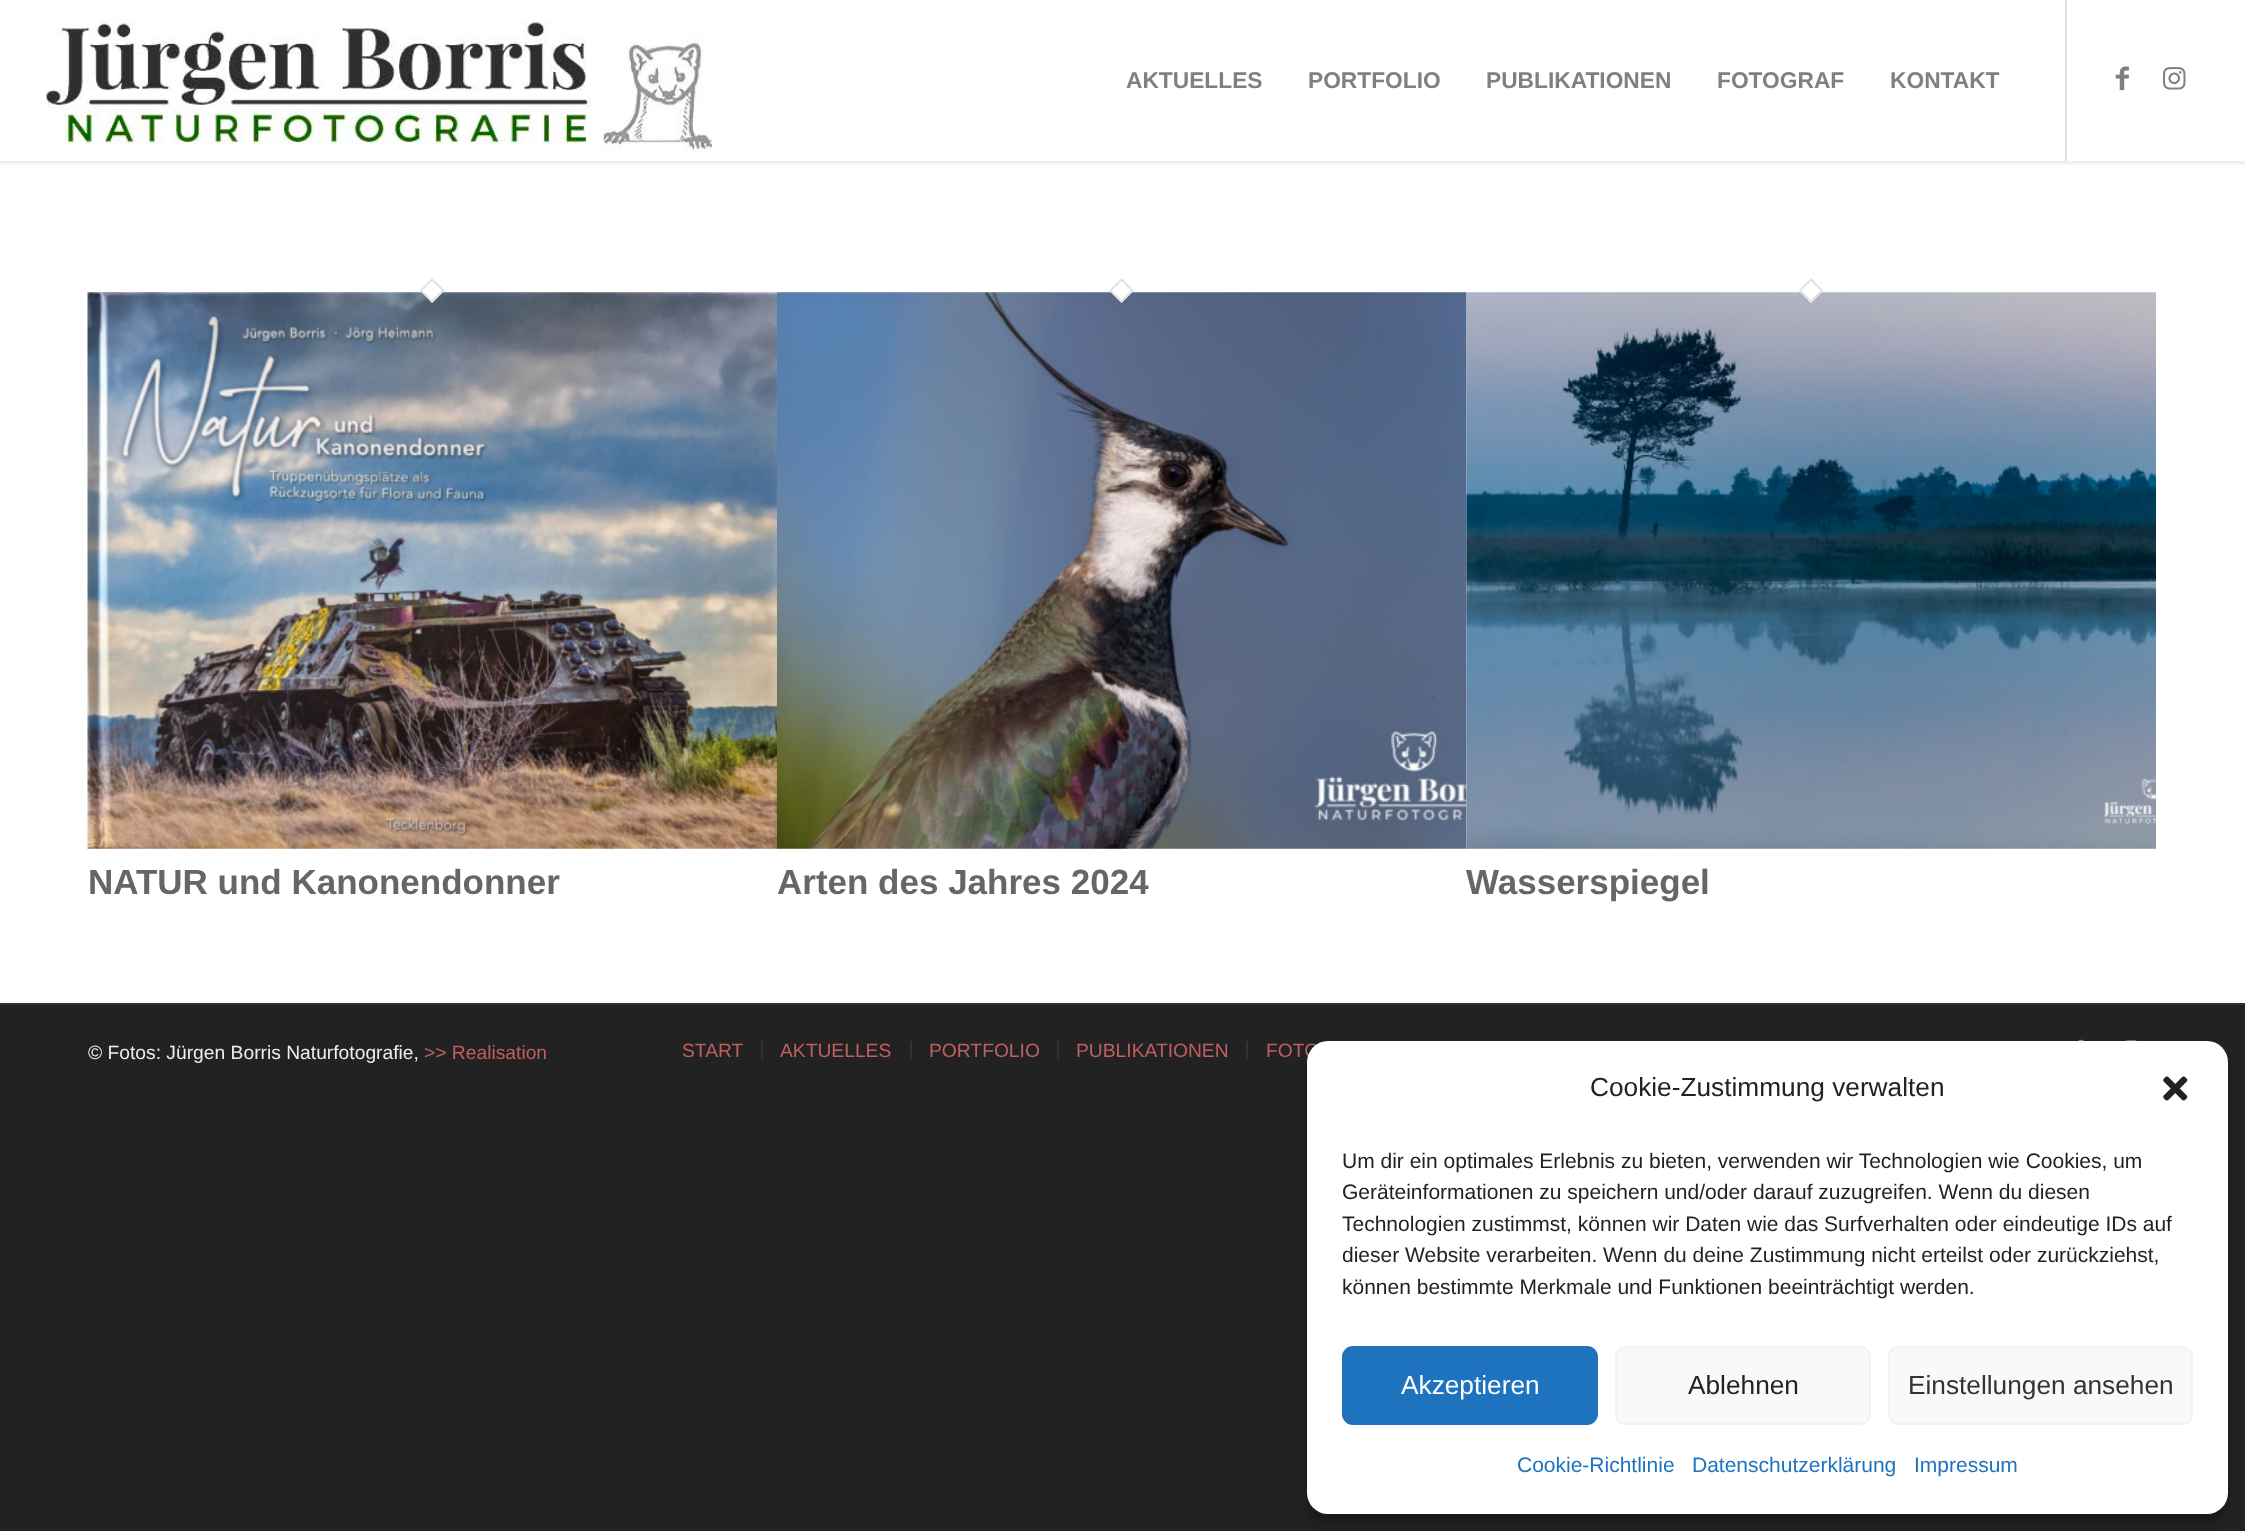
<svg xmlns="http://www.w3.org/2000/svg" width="2245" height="1531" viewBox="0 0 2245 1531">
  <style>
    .t1 { font: bold 22.75px Liberation Sans; fill: #808080; }
    .t2 { font: bold 35px Liberation Sans; fill: #666; }
    .t3 { font: 19.25px Liberation Sans; fill: #eee; }
    .t4 { font: 19.25px Liberation Sans; fill: #c05f5f; }
    .t5 { font: 26.25px Liberation Sans; fill: #222; }
    .t6 { font: 21px Liberation Sans; fill: #222; }
    .t7 { font: 26.25px Liberation Sans; fill: #fff; }
    .t8 { font: 26.25px Liberation Sans; fill: #333; }
    .t9 { font: 21px Liberation Sans; fill: #1e73be; }
  </style>
  <defs>
    <clipPath id="clip1"><rect x="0" y="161" width="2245" height="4"/></clipPath>
  </defs>
  <rect width="100%" height="100%" fill="#222"/>
  <rect x="0" y="0" width="2245" height="1003" fill="#fff"/>
  <g clip-path="url(#clip1)">
    <rect x="-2" y="-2" width="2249" height="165" fill="#0000001a" filter="blur(2px)"/>
  </g>
  <image x="46" y="18" width="667" height="135" href="images/1.png"/>
  <rect x="2065" y="0" width="2" height="161" fill="#e1e1e1"/>
  <text x="1126" y="88" class="t1">AKTUELLES</text>
  <text x="1308" y="88" class="t1">PORTFOLIO</text>
  <text x="1486" y="88" class="t1">PUBLIKATIONEN</text>
  <text x="1717" y="88" class="t1">FOTOGRAF</text>
  <text x="1890" y="88" class="t1">KONTAKT</text>
  <image x="2115" y="66" width="14" height="25" href="images/2.png"/>
  <image x="2163" y="67" width="23" height="23" href="images/3.png"/>
  <image x="87" y="292" width="690" height="557" href="images/4.png"/>
  <path d="M432 278L444.5 290.5L432 303L420 290.5Z" fill="#fff"/>
  <path d="M432 279.5L443.5 290.5L432 301.5L421 290.5Z" fill="none" stroke="#e1e1e1" stroke-width="1.8"/>
  <text x="88" y="894" class="t2">NATUR und Kanonendonner</text>
  <image x="777" y="292" width="690" height="557" href="images/5.png"/>
  <path d="M1121.5 278L1134 290.5L1121.5 303L1109 290.5Z" fill="#fff"/>
  <path d="M1121.5 279.5L1132.5 290.5L1121.5 301.5L1110.5 290.5Z" fill="none" stroke="#e1e1e1" stroke-width="1.8"/>
  <text x="777" y="894" class="t2">Arten des Jahres 2024</text>
  <image x="1466" y="292" width="690" height="557" href="images/6.png"/>
  <path d="M1811 278L1823.5 290.5L1811 303L1798.5 290.5Z" fill="#fff"/>
  <path d="M1811 279.5L1822 290.5L1811 301.5L1800 290.5Z" fill="none" stroke="#e1e1e1" stroke-width="1.8"/>
  <text x="1466" y="894" class="t2">Wasserspiegel</text>
  <rect x="0" y="1003" width="2245" height="2" fill="#333"/>
  <image x="2078" y="1039" width="6" height="2" href="images/7.png"/>
  <image x="2125" y="1040" width="12" height="1" href="images/8.png"/>
  <text x="88" y="1059" class="t3">© Fotos: Jürgen Borris Naturfotografie,</text>
  <text x="424" y="1059" class="t4">&gt;&gt; Realisation</text>
  <text x="682" y="1057" class="t4">START</text>
  <rect x="761" y="1041" width="2" height="18" fill="#333"/>
  <text x="780" y="1057" class="t4">AKTUELLES</text>
  <rect x="910" y="1041" width="2" height="18" fill="#333"/>
  <text x="929" y="1057" class="t4">PORTFOLIO</text>
  <rect x="1057" y="1041" width="2" height="18" fill="#333"/>
  <text x="1076" y="1057" class="t4">PUBLIKATIONEN</text>
  <rect x="1246" y="1041" width="2" height="18" fill="#333"/>
  <text x="1266" y="1057" class="t4">FOTO</text>
  <rect x="1307" y="1052" width="921" height="472" rx="21" fill="#0000003b" filter="blur(5px)"/>
  <rect x="1307" y="1041" width="921" height="473" rx="21" fill="#fff"/>
  <text x="1590" y="1096" class="t5">Cookie-Zustimmung verwalten</text>
  <image x="2163" y="1076" width="25" height="25" href="images/9.png"/>
  <text x="1342" y="1168" class="t6">Um dir ein optimales Erlebnis zu bieten, verwenden wir Technologien wie Cookies, um</text>
  <text x="1342" y="1199" class="t6">Geräteinformationen zu speichern und/oder darauf zuzugreifen. Wenn du diesen</text>
  <text x="1342" y="1231" class="t6">Technologien zustimmst, können wir Daten wie das Surfverhalten oder eindeutige IDs auf</text>
  <text x="1342" y="1262" class="t6">dieser Website verarbeiten. Wenn du deine Zustimmung nicht erteilst oder zurückziehst,</text>
  <text x="1342" y="1294" class="t6">können bestimmte Merkmale und Funktionen beeinträchtigt werden.</text>
  <rect x="1343" y="1347" width="254" height="77" rx="10" fill="#1e73be" stroke="#1e73be" stroke-width="2"/>
  <text x="1401" y="1394" class="t7">Akzeptieren</text>
  <rect x="1616" y="1347" width="254" height="77" rx="10" fill="#f9f9f9" stroke="#f2f2f2" stroke-width="2"/>
  <text x="1688" y="1394" class="t5">Ablehnen</text>
  <rect x="1889" y="1347" width="303" height="77" rx="10" fill="#f9f9f9" stroke="#f2f2f2" stroke-width="2"/>
  <text x="1908" y="1394" class="t8">Einstellungen ansehen</text>
  <text x="1517" y="1472" class="t9">Cookie-Richtlinie</text>
  <text x="1692" y="1472" class="t9">Datenschutzerklärung</text>
  <text x="1914" y="1472" class="t9">Impressum</text>
</svg>
